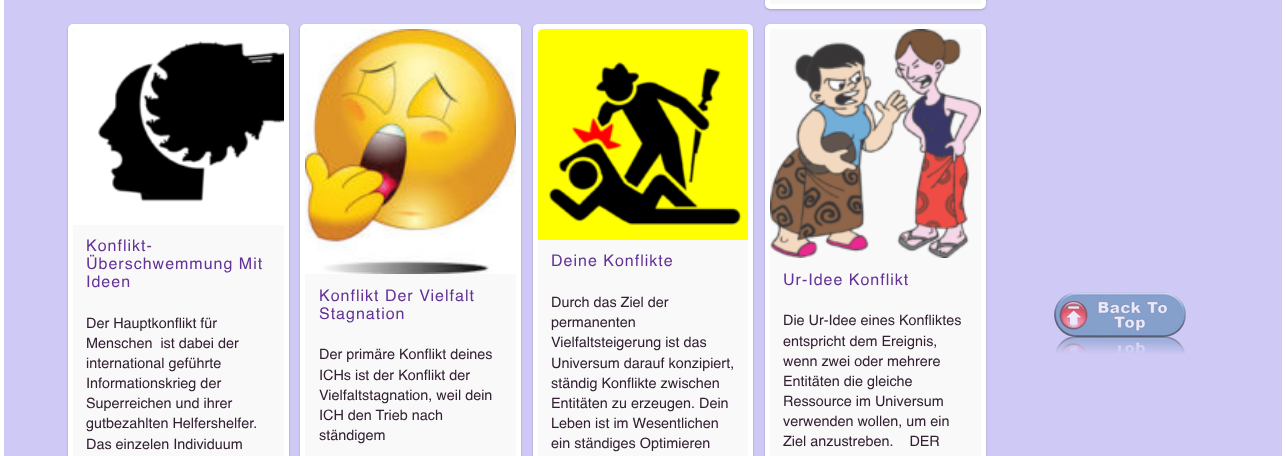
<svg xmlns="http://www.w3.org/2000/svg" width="1286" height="456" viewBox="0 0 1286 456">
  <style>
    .t1 { font: 16px Helvetica; letter-spacing: 1px; fill: #643296; }
    .t2 { font: 14.4px Helvetica; fill: #332033; }
  </style>
  <rect width="100%" height="100%" fill="#cec9f5"/>
  <rect x="2" y="-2" width="1282" height="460" fill="none" stroke="#fff" stroke-width="4"/>
  <rect x="765" y="-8" width="221" height="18" rx="5" fill="#00000033" filter="blur(1px)"/>
  <rect x="767.5" y="-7.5" width="216" height="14" rx="2.5" fill="#f9f9f9" stroke="#fff" stroke-width="5"/>
  <rect x="68" y="25" width="221" height="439" rx="5" fill="#00000033" filter="blur(1px)"/>
  <rect x="70.5" y="26.5" width="216" height="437" rx="2.5" fill="#f9f9f9" stroke="#fff" stroke-width="5"/>
  <image x="73" y="29" width="211" height="196" href="images/1.png"/>
  <text x="86" y="251" class="t1">Konflikt-</text>
  <text x="86" y="269" class="t1">Überschwemmung Mit</text>
  <text x="86" y="287" class="t1">Ideen</text>
  <text x="86" y="328" class="t2">Der Hauptkonflikt für</text>
  <text x="86" y="348" class="t2" xml:space="preserve">Menschen  ist dabei der</text>
  <text x="86" y="368" class="t2">international geführte</text>
  <text x="86" y="388" class="t2">Informationskrieg der</text>
  <text x="86" y="408" class="t2">Superreichen und ihrer</text>
  <text x="86" y="428" class="t2">gutbezahlten Helfershelfer.</text>
  <text x="86" y="449" class="t2">Das einzelen Individuum</text>
  <rect x="300" y="25" width="221" height="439" rx="5" fill="#00000033" filter="blur(1px)"/>
  <rect x="302.5" y="26.5" width="216" height="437" rx="2.5" fill="#f9f9f9" stroke="#fff" stroke-width="5"/>
  <image x="305" y="29" width="211" height="245" href="images/2.png"/>
  <text x="319" y="301" class="t1">Konflikt Der Vielfalt</text>
  <text x="319" y="319" class="t1">Stagnation</text>
  <text x="319" y="359" class="t2">Der primäre Konflikt deines</text>
  <text x="319" y="380" class="t2">ICHs ist der Konflikt der</text>
  <text x="319" y="400" class="t2">Vielfaltstagnation, weil dein</text>
  <text x="319" y="420" class="t2">ICH den Trieb nach</text>
  <text x="319" y="440" class="t2">ständigem</text>
  <rect x="533" y="25" width="220" height="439" rx="5" fill="#00000033" filter="blur(1px)"/>
  <rect x="535.5" y="26.5" width="215" height="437" rx="2.5" fill="#f9f9f9" stroke="#fff" stroke-width="5"/>
  <image x="538" y="29" width="210" height="211" href="images/3.png"/>
  <text x="551" y="266" class="t1">Deine Konflikte</text>
  <text x="551" y="307" class="t2">Durch das Ziel der</text>
  <text x="551" y="327" class="t2">permanenten</text>
  <text x="551" y="347" class="t2">Vielfaltsteigerung ist das</text>
  <text x="551" y="368" class="t2">Universum darauf konzipiert,</text>
  <text x="551" y="388" class="t2">ständig Konflikte zwischen</text>
  <text x="551" y="408" class="t2">Entitäten zu erzeugen. Dein</text>
  <text x="551" y="428" class="t2">Leben ist im Wesentlichen</text>
  <text x="551" y="448" class="t2">ein ständiges Optimieren</text>
  <rect x="765" y="25" width="221" height="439" rx="5" fill="#00000033" filter="blur(1px)"/>
  <rect x="767.5" y="26.5" width="216" height="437" rx="2.5" fill="#f9f9f9" stroke="#fff" stroke-width="5"/>
  <image x="770" y="29" width="211" height="229" href="images/4.png"/>
  <text x="783" y="285" class="t1">Ur-Idee Konflikt</text>
  <text x="783" y="325" class="t2">Die Ur-Idee eines Konfliktes</text>
  <text x="783" y="346" class="t2">entspricht dem Ereignis,</text>
  <text x="783" y="366" class="t2">wenn zwei oder mehrere</text>
  <text x="783" y="386" class="t2">Entitäten die gleiche</text>
  <text x="783" y="406" class="t2">Ressource im Universum</text>
  <text x="783" y="426" class="t2">verwenden wollen, um ein</text>
  <text x="783" y="446" class="t2" xml:space="preserve">Ziel anzustreben.    DER</text>
  <image x="1054" y="292" width="132" height="62" href="images/5.png"/>
</svg>
